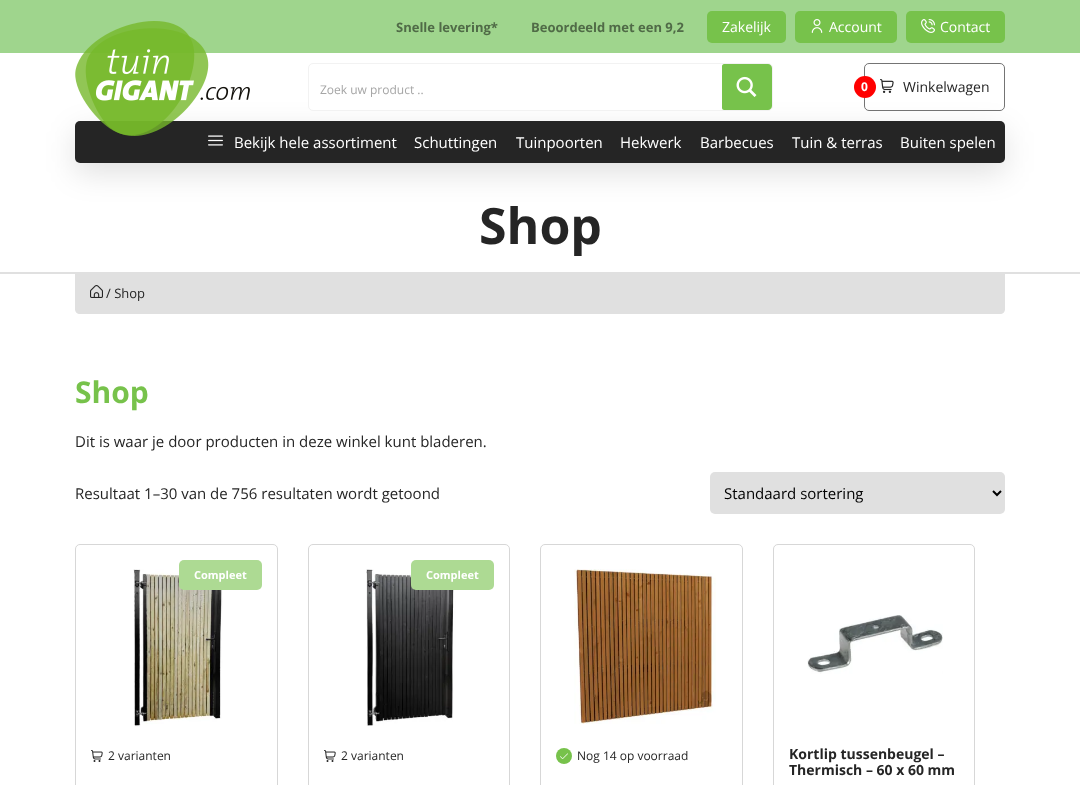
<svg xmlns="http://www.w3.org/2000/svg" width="1080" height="785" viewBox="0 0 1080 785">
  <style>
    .t1 { font: bold 13px Open Sans; fill: #506b47; }
    .t2 { font: 14px Open Sans; fill: #fff; }
    .t3 { font: 12px Open Sans; fill: #a5a5a5; }
    .t4 { font: bold 12px Open Sans; fill: #fff; }
    .t5 { font: 14px Open Sans; fill: #252525; }
    .t6 { font: 15px Open Sans; fill: #fff; }
    .t7 { font: bold 50px Open Sans; fill: #252525; }
    .t8 { font: 13px Open Sans; fill: #252525; }
    .t9 { font: bold 30px Open Sans; fill: #77c24b; }
    .t10 { font: 15px Open Sans; fill: #252525; }
    .t11 { font: 15px Open Sans; fill: #000; }
    .t12 { font: bold 11px Open Sans; fill: #fff; }
    .t13 { font: 12px Open Sans; fill: #252525; }
    .t14 { font: bold 14px Open Sans; fill: #252525; }
  </style>
  <rect width="100%" height="100%" fill="#fff"/>
  <rect x="0" y="0" width="1080" height="53" fill="#9fd58d"/>
  <text x="396" y="32" class="t1">Snelle levering*</text>
  <text x="531" y="32" class="t1">Beoordeeld met een 9,2</text>
  <rect x="707" y="11" width="79" height="32" rx="5" fill="#77c24b"/>
  <text x="722" y="32" class="t2">Zakelijk</text>
  <rect x="795" y="11" width="102" height="32" rx="5" fill="#77c24b"/>
  <image x="811" y="19" width="12" height="14" href="images/1.png"/>
  <text x="829" y="32" class="t2">Account</text>
  <rect x="906" y="11" width="99" height="32" rx="5" fill="#77c24b"/>
  <image x="921" y="19" width="14" height="14" href="images/2.png"/>
  <text x="940" y="32" class="t2">Contact</text>
  <rect x="864.5" y="63.5" width="140" height="47" rx="4.5" fill="none" stroke="#747474"/>
  <circle cx="865" cy="87" r="11" fill="#f00"/>
  <image x="880" y="79" width="14" height="14" href="images/5.png"/>
  <rect x="75" y="131" width="930" height="42" rx="5" fill="#0000001f" filter="blur(15px)"/>
  <rect x="75" y="121" width="930" height="42" rx="5" fill="#252525"/>
  <image x="208" y="135" width="15" height="11" href="images/6.png"/>
  <image x="75" y="21" width="175" height="115" href="images/3.png"/>
  <rect x="308.5" y="63.5" width="464" height="47" rx="4.5" fill="#fff" stroke="#f2f2f2"/>
  <text x="320" y="94" class="t3">Zoek uw product ..</text>
  <path d="M724 64H768C770 64 772 66 772 68V106C772 108 770 110 768 110H724C723 110 722 109 722 108V66C722 65 723 64 724 64Z" fill="#77c24b"/>
  <image x="736" y="76" width="21" height="21" href="images/4.png"/>
  <text x="861" y="91" class="t4">0</text>
  <text x="903" y="92" class="t5">Winkelwagen</text>
  <text x="234" y="148" class="t6">Bekijk hele assortiment</text>
  <text x="414" y="148" class="t6">Schuttingen</text>
  <text x="516" y="148" class="t6">Tuinpoorten</text>
  <text x="620" y="148" class="t6">Hekwerk</text>
  <text x="700" y="148" class="t6">Barbecues</text>
  <text x="792" y="148" class="t6">Tuin &amp; terras</text>
  <text x="900" y="148" class="t6">Buiten spelen</text>
  <rect x="0" y="272" width="1080" height="2" fill="#e0e0e0"/>
  <text x="479" y="244" class="t7">Shop</text>
  <path d="M75 274H1005V309C1005 312 1003 314 1000 314H80C77 314 75 312 75 309Z" fill="#e0e0e0"/>
  <image x="90" y="285" width="13" height="13" href="images/7.png"/>
  <text x="106" y="298" class="t8">/ Shop</text>
  <text x="75" y="403" class="t9">Shop</text>
  <text x="75" y="447" class="t10">Dit is waar je door producten in deze winkel kunt bladeren.</text>
  <text x="75" y="499" class="t10">Resultaat 1–30 van de 756 resultaten wordt getoond</text>
  <rect x="710" y="472" width="295" height="42" rx="5" fill="#e0e0e0"/>
  <path d="M993 491L997 495L1001 491" fill="none" stroke="#000" stroke-width="2"/>
  <text x="724" y="499" class="t11">Standaard sortering</text>
  <rect x="75.5" y="544.5" width="202" height="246" rx="4.5" fill="none" stroke="#d7d7d7"/>
  <image x="133" y="569" width="90" height="158" href="images/8.png"/>
  <rect x="179" y="560" width="83" height="30" rx="5" fill="#adda93"/>
  <text x="194" y="579" class="t12">Compleet</text>
  <image x="91" y="750" width="12" height="12" href="images/9.png"/>
  <text x="108" y="760" class="t13">2 varianten</text>
  <rect x="308.5" y="544.5" width="201" height="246" rx="4.5" fill="none" stroke="#d7d7d7"/>
  <image x="366" y="569" width="90" height="157" href="images/10.png"/>
  <rect x="411" y="560" width="83" height="30" rx="5" fill="#adda93"/>
  <text x="426" y="579" class="t12">Compleet</text>
  <image x="324" y="750" width="12" height="12" href="images/9.png"/>
  <text x="341" y="760" class="t13">2 varianten</text>
  <rect x="540.5" y="544.5" width="202" height="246" rx="4.5" fill="none" stroke="#d7d7d7"/>
  <image x="574" y="569" width="142" height="155" href="images/11.png"/>
  <circle cx="564" cy="756" r="8" fill="#77c24b"/>
  <image x="560" y="753" width="8" height="6" href="images/12.png"/>
  <text x="577" y="760" class="t13">Nog 14 op voorraad</text>
  <rect x="773.5" y="544.5" width="201" height="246" rx="4.5" fill="none" stroke="#d7d7d7"/>
  <image x="807" y="615" width="136" height="59" href="images/13.png"/>
  <text x="789" y="759" class="t14">Kortlip tussenbeugel –</text>
  <text x="789" y="775" class="t14">Thermisch – 60 x 60 mm</text>
</svg>
